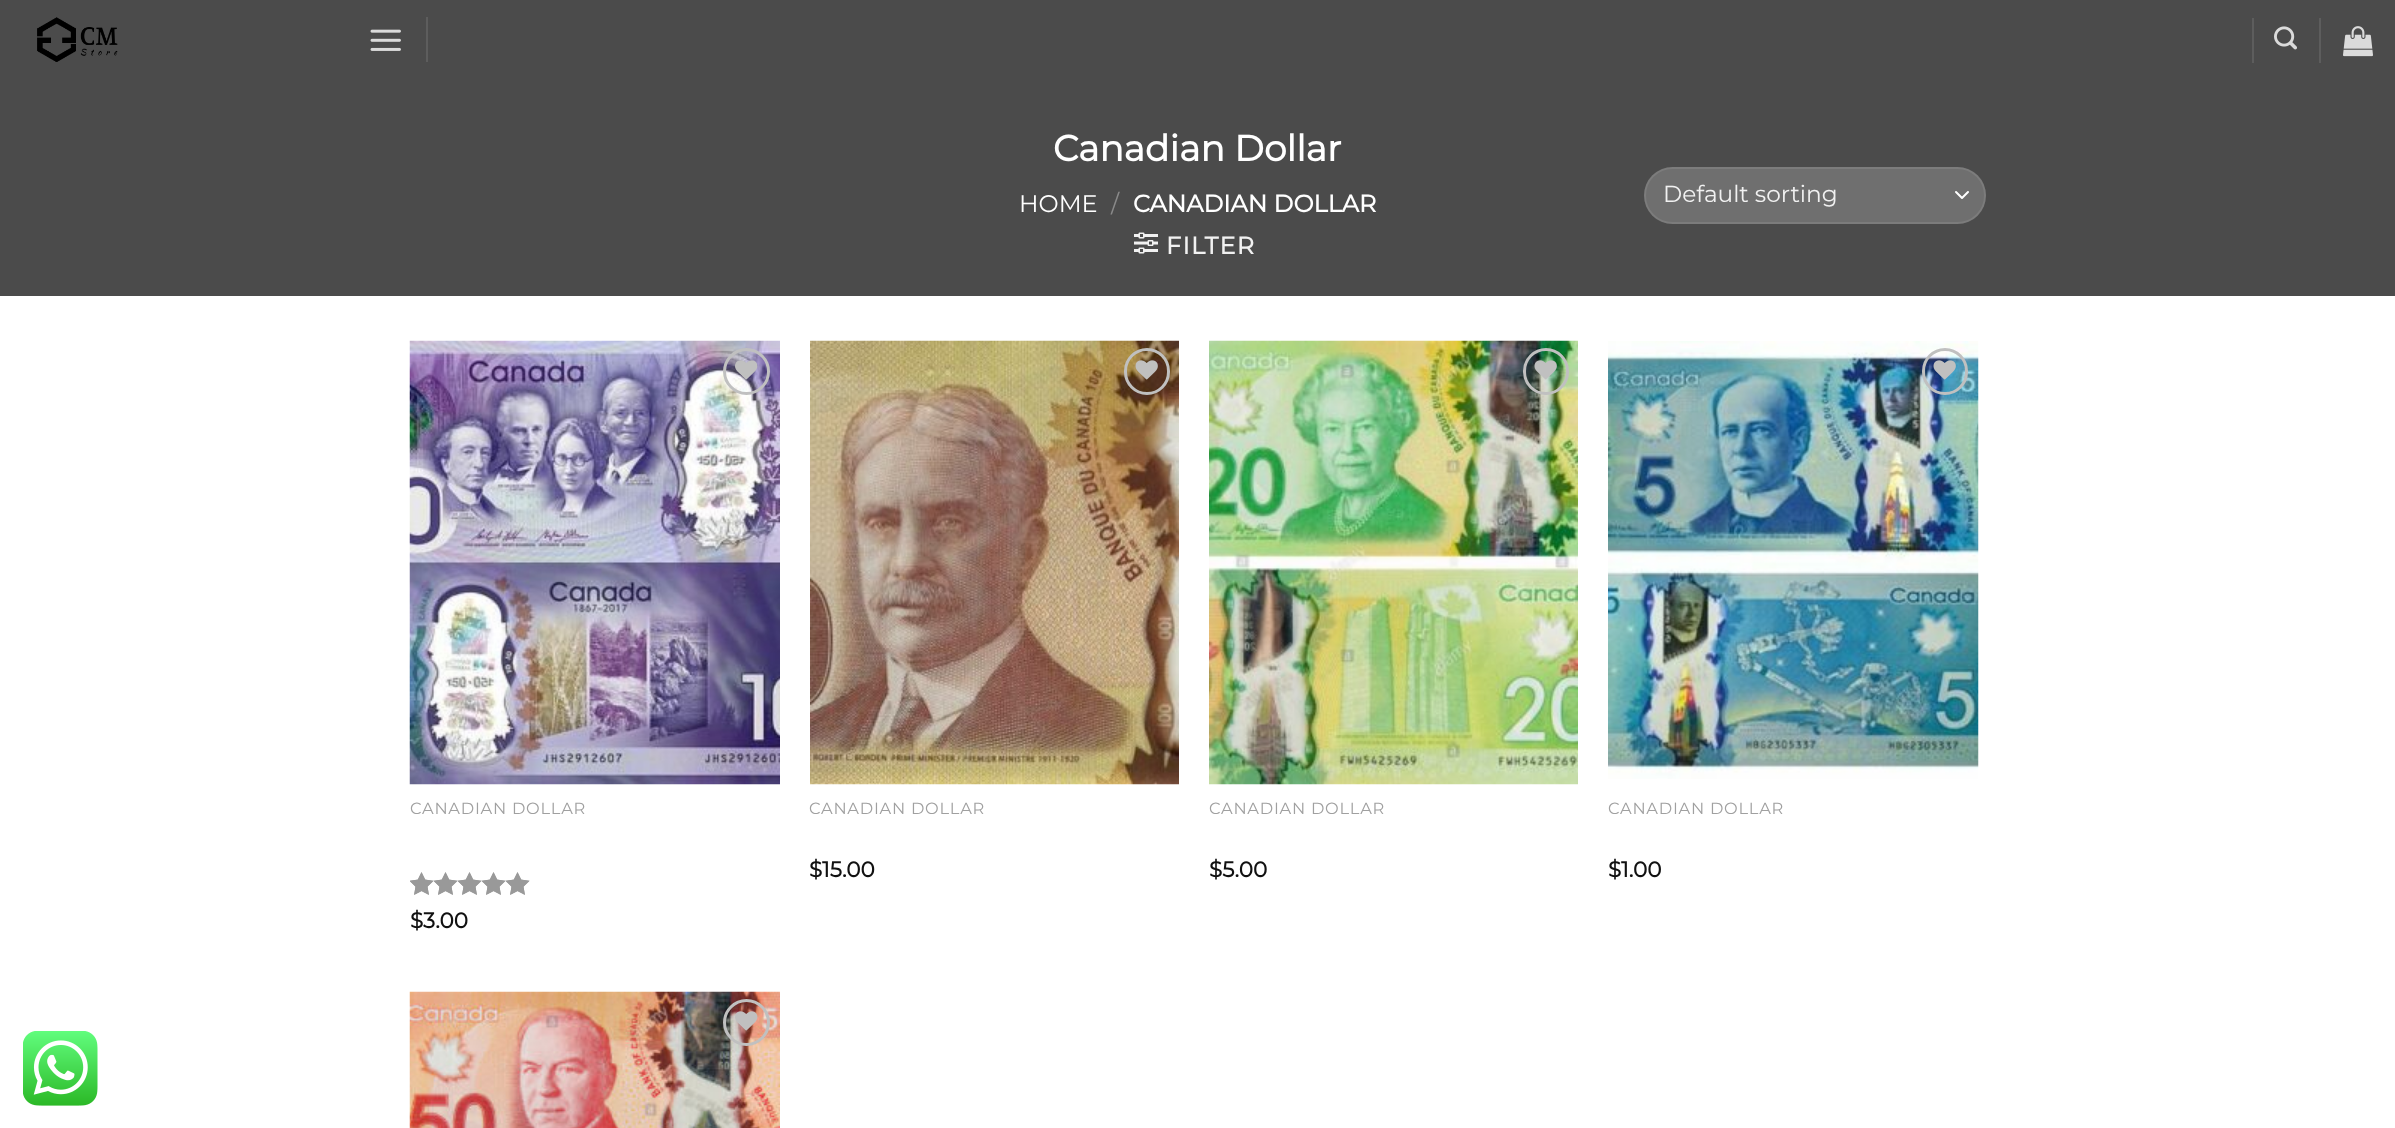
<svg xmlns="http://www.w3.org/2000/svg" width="2395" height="1128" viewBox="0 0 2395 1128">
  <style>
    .t1 { font: bold 36px Montserrat; fill: #fff; }
    .t2 { font: 24px Montserrat; fill: #fff; }
    .t3 { font: 24px Montserrat; fill: #8a8a8a; }
    .t4 { font: bold 24px Montserrat; fill: #fff; }
    .t5 { font: bold 24px Montserrat; letter-spacing: 1.25px; fill: #f1f1f1; }
    .t6 { font: 23.25px Montserrat; fill: #f1f1f1; }
    .t7 { font: 16.25px Montserrat; letter-spacing: 0.75px; fill: #a0a0a0; }
    .t8 { font: bold 21.5px Montserrat; fill: #111; }
  </style>
  <rect width="100%" height="100%" fill="#fff"/>
  <rect x="0" y="0" width="2395" height="296" fill="#4b4b4b"/>
  <image x="37" y="17" width="81" height="45" href="images/1.png"/>
  <image x="370" y="29" width="31" height="22" href="images/2.png"/>
  <rect x="426" y="17" width="2" height="45" fill="#5d5d5d"/>
  <rect x="2252" y="18" width="2" height="45" fill="#5d5d5d"/>
  <image x="2274" y="26" width="23" height="24" href="images/3.png"/>
  <rect x="2319" y="18" width="2" height="45" fill="#5d5d5d"/>
  <image x="2343" y="26" width="30" height="31" href="images/4.png"/>
  <text x="1053" y="161" class="t1">Canadian Dollar</text>
  <text x="1019" y="212" class="t2">HOME</text>
  <text x="1111" y="212" class="t3">/</text>
  <text x="1133" y="212" class="t4">CANADIAN DOLLAR</text>
  <image x="1134" y="232" width="24" height="22" href="images/5.png"/>
  <text x="1166" y="254" class="t5">FILTER</text>
  <rect x="1644" y="167" width="342" height="57" rx="28.5" fill="#6f6f6f"/>
  <path d="M1956 192L1962 198L1968 192" fill="none" stroke="#fff" stroke-width="2" stroke-linecap="round" stroke-linejoin="round"/>
  <rect x="1645" y="168" width="340" height="55" rx="27.5" fill="none" stroke="#ffffff17" stroke-width="2"/>
  <text x="1663" y="202" class="t6">Default sorting</text>
  <image x="409" y="340" width="371" height="445" href="images/6.png"/>
  <circle cx="746.5" cy="371.5" r="22" fill="none" stroke="#c0c0c0" stroke-width="3"/>
  <image x="735" y="360" width="23" height="20" href="images/7.png"/>
  <text x="410" y="814" class="t7">CANADIAN DOLLAR</text>
  <image x="410" y="872" width="120" height="23" href="images/8.png"/>
  <image x="410" y="872" width="120" height="23" href="images/9.png"/>
  <text x="410" y="928" class="t8">$3.00</text>
  <image x="810" y="340" width="369" height="445" href="images/10.png"/>
  <rect x="1125.5" y="349.5" width="43" height="44" rx="21.5" fill="none" stroke="#c0c0c0" stroke-width="3"/>
  <image x="1135" y="360" width="23" height="20" href="images/11.png"/>
  <text x="809" y="814" class="t7">CANADIAN DOLLAR</text>
  <text x="809" y="877" class="t8">$15.00</text>
  <image x="1209" y="340" width="369" height="445" href="images/12.png"/>
  <rect x="1524.5" y="349.5" width="43" height="44" rx="21.5" fill="none" stroke="#c0c0c0" stroke-width="3"/>
  <image x="1534" y="360" width="23" height="20" href="images/13.png"/>
  <text x="1209" y="814" class="t7">CANADIAN DOLLAR</text>
  <text x="1209" y="877" class="t8">$5.00</text>
  <image x="1608" y="341" width="371" height="438" href="images/14.png"/>
  <rect x="1923.5" y="349.5" width="43" height="44" rx="21.5" fill="none" stroke="#c0c0c0" stroke-width="3"/>
  <image x="1933" y="360" width="23" height="20" href="images/15.png"/>
  <text x="1608" y="814" class="t7">CANADIAN DOLLAR</text>
  <text x="1608" y="877" class="t8">$1.00</text>
  <image x="409" y="991" width="371" height="137" href="images/16.png"/>
  <circle cx="746.5" cy="1022.5" r="22" fill="none" stroke="#c0c0c0" stroke-width="3"/>
  <image x="735" y="1011" width="23" height="20" href="images/17.png"/>
  <image x="23" y="1031" width="75" height="75" href="images/18.png"/>
</svg>
